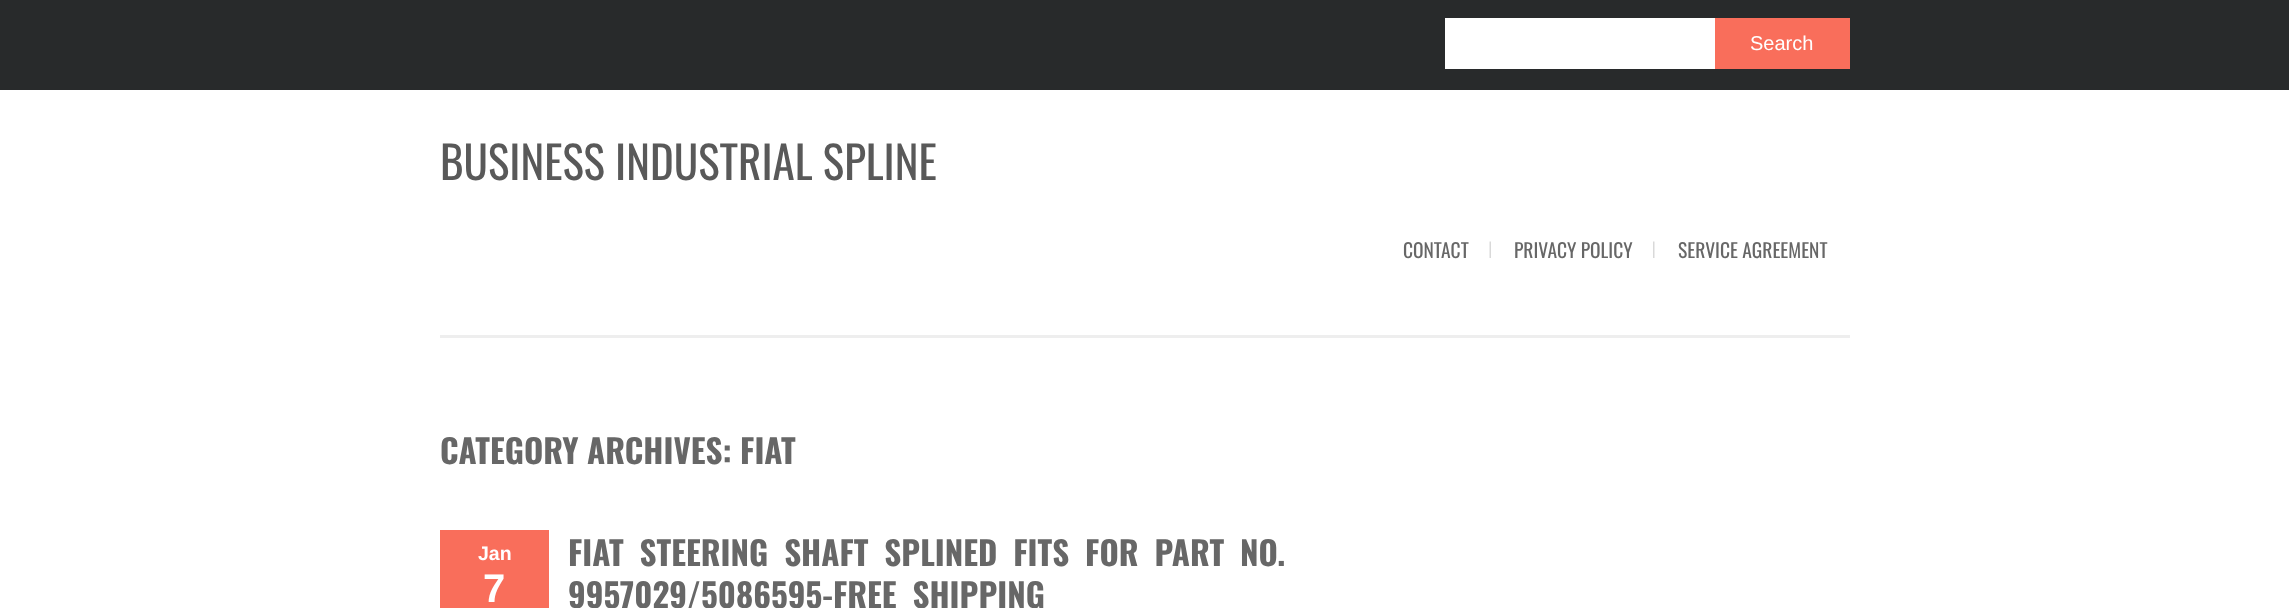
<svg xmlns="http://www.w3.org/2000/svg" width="2289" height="608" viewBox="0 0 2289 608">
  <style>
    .t1 { font: 20px Liberation Sans; fill: #fff; }
    .t2 { font: 45px Oswald; fill: #595959; }
    .t3 { font: 19.5px Oswald; fill: #676767; }
    .t4 { font: bold 33px Oswald; fill: #676767; }
    .t5 { font: bold 19.5px Liberation Sans; fill: #fff; }
    .t6 { font: bold 40px Liberation Sans; fill: #fff; }
  </style>
  <rect width="100%" height="100%" fill="#fff"/>
  <rect x="0" y="0" width="2289" height="90" fill="#282a2b"/>
  <rect x="1445" y="18" width="270" height="51" fill="#fff"/>
  <rect x="1715" y="18" width="135" height="51" fill="#f96e5b"/>
  <text x="1750" y="50" class="t1">Search</text>
  <rect x="440" y="335" width="1410" height="3" fill="#eee"/>
  <text x="440" y="180" class="t2">BUSINESS INDUSTRIAL SPLINE</text>
  <image x="1489" y="241" width="2" height="17" href="images/1.png"/>
  <text x="1403" y="258" class="t3">CONTACT</text>
  <image x="1653" y="241" width="2" height="17" href="images/2.png"/>
  <text x="1514" y="258" class="t3">PRIVACY POLICY</text>
  <text x="1678" y="258" class="t3">SERVICE AGREEMENT</text>
  <text x="440" y="464" class="t4">CATEGORY ARCHIVES: FIAT</text>
  <rect x="440" y="530" width="109" height="78" fill="#f96e5b"/>
  <text x="478" y="560" class="t5">Jan</text>
  <text x="483" y="602" class="t6">7</text>
  <text x="568" y="566" word-spacing="7.5" class="t4">FIAT STEERING SHAFT SPLINED FITS FOR PART NO.</text>
  <text x="568" y="608" word-spacing="7.5" class="t4">9957029/5086595-FREE SHIPPING</text>
</svg>
